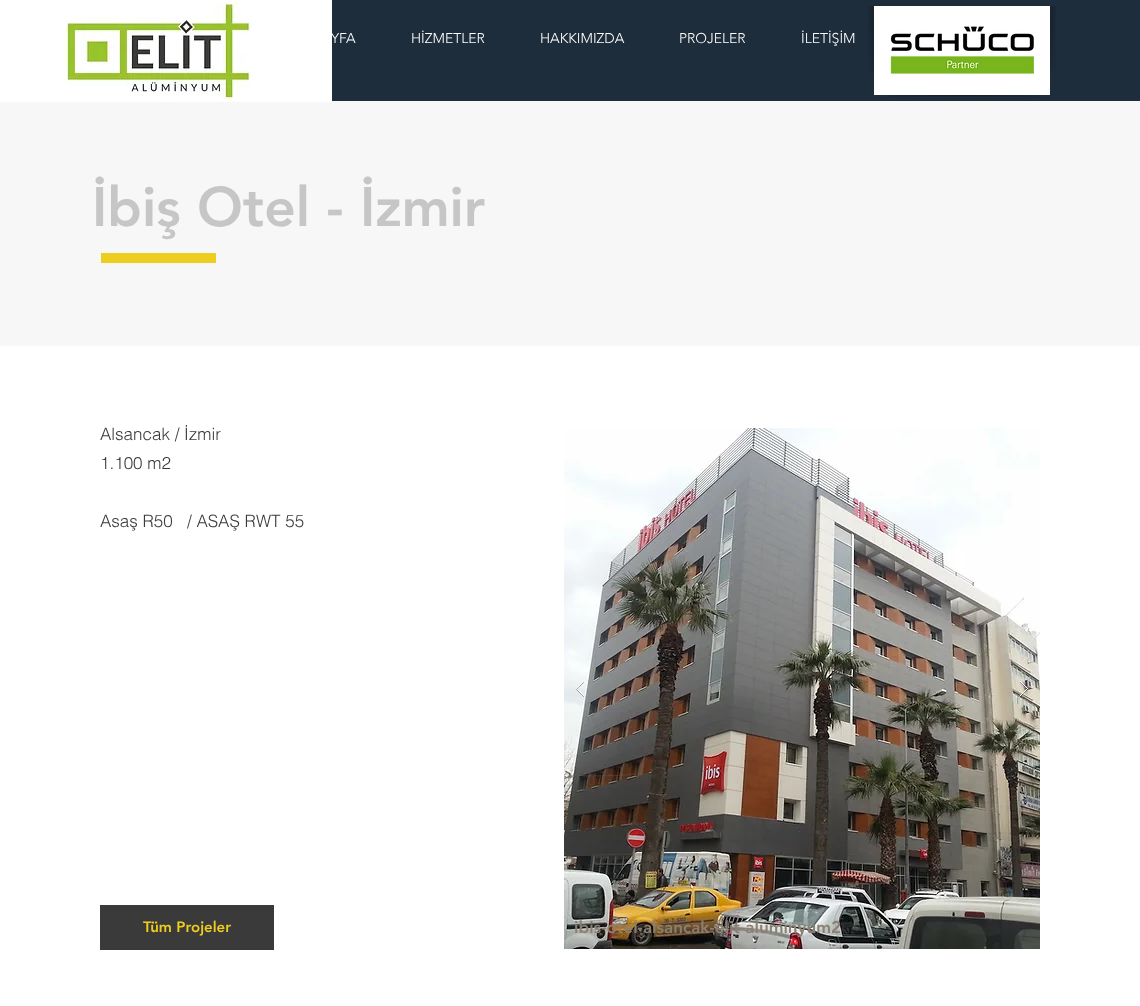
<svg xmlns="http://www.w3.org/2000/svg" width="1140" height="1006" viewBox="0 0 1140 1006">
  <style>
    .t1 { font: 300 14px 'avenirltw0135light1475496'; fill: #fff; }
    .t2 { font: 900 55px 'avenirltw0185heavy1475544'; fill: #c6c6c6; }
    .t3 { font: 300 17px helvetica; fill: #3b3a3a; }
    .t4 { font: 900 15px 'avenirltw0185heavy1475544'; fill: #edcd1f; }
    .t5 { font: 900 17px 'avenirltw0185heavy1475544'; fill: #8b8070; }
  </style>
  <rect width="100%" height="100%" fill="#f7f7f7"/>
  <rect x="0" y="0" width="332" height="102" fill="#fff"/>
  <image x="63" y="2" width="189" height="99" href="images/1.png"/>
  <rect x="332" y="0" width="808" height="101" fill="#1e2d3b"/>
  <image x="868" y="6" width="6" height="65" href="images/2.png"/>
  <rect x="874" y="6" width="176" height="89" fill="#fff"/>
  <image x="890" y="26" width="144" height="48" href="images/3.png"/>
  <image x="888" y="95" width="149" height="2" href="images/4.png"/>
  <image x="1050" y="6" width="6" height="65" href="images/5.png"/>
  <text x="331" y="43" class="t1">YFA</text>
  <text x="411" y="43" class="t1">HİZMETLER</text>
  <text x="540" y="43" class="t1">HAKKIMIZDA</text>
  <text x="679" y="43" class="t1">PROJELER</text>
  <text x="801" y="43" class="t1">İLETİŞİM</text>
  <text x="92" y="226" class="t2">İbiş Otel - İzmir</text>
  <rect x="101" y="253" width="115" height="10" fill="#edcd1f"/>
  <rect x="0" y="346" width="1140" height="660" fill="#fff"/>
  <text x="100" y="440" class="t3">Alsancak / İzmir</text>
  <text x="100" y="469" class="t3">1.100 m2</text>
  <text x="100" y="527" class="t3" xml:space="preserve">Asaş R50   / ASAŞ RWT 55</text>
  <rect x="100" y="905" width="174" height="45" fill="#3b3a3a"/>
  <text x="143" y="932" class="t4">Tüm Projeler</text>
  <image x="564" y="428" width="476" height="521" href="images/8.png"/>
  <image x="576" y="681" width="8" height="16" href="images/6.png"/>
  <image x="1020" y="681" width="8" height="16" href="images/7.png"/>
  <text x="574" y="933" class="t5">ibis-otel-alsancak-elit-aluminyum2</text>
</svg>
